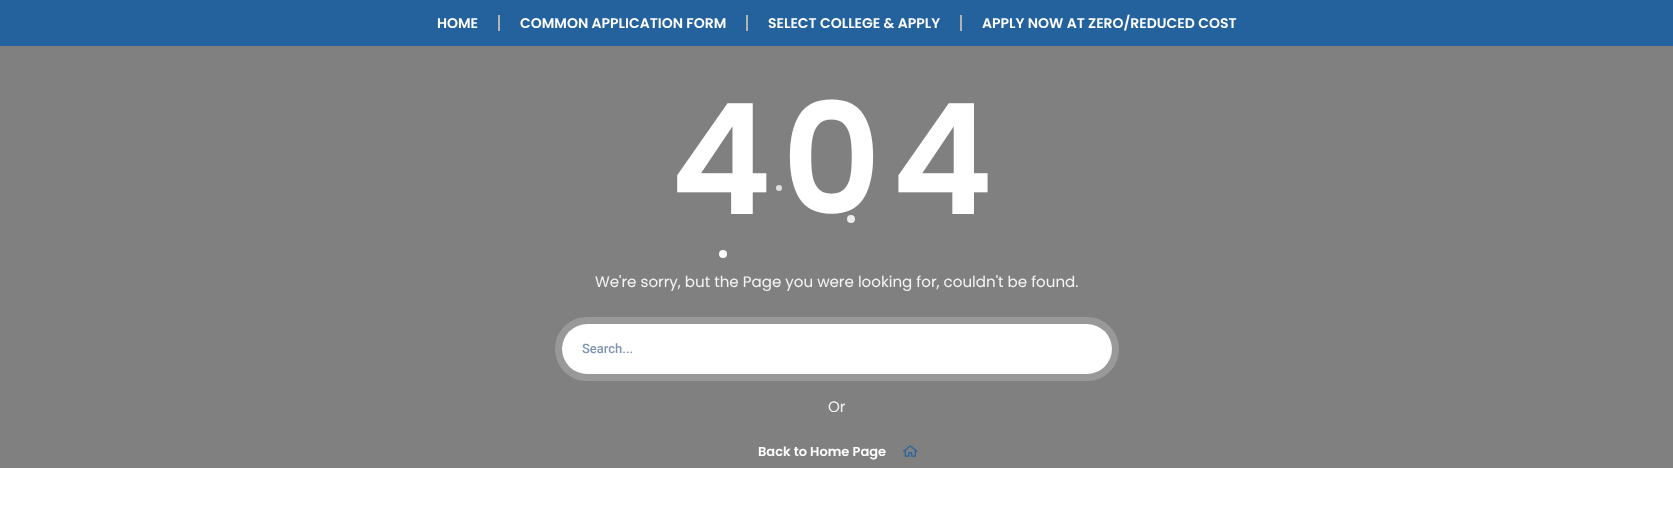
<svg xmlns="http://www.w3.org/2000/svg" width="1673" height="506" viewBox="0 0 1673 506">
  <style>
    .t1 { font: 600 14px Poppins; fill: #fff; }
    .t2 { font: 600 154px Poppins; letter-spacing: 10px; fill: #fff; }
    .t3 { font: 15.1px Poppins; fill: #f4f4f4; }
    .t4 { font: 500 13px Roboto; fill: #7d93b2; }
    .t5 { font: 600 13px Poppins; fill: #fff; }
  </style>
  <rect width="100%" height="100%" fill="#fff"/>
  <rect x="0" y="0" width="1673" height="46" fill="#24629d"/>
  <text x="437" y="28" class="t1">HOME</text>
  <rect x="498" y="15" width="2" height="16" fill="#b3b3b3"/>
  <text x="520" y="28" class="t1">COMMON APPLICATION FORM</text>
  <rect x="746" y="15" width="2" height="16" fill="#b3b3b3"/>
  <text x="768" y="28" class="t1">SELECT COLLEGE &amp; APPLY</text>
  <rect x="960" y="15" width="2" height="16" fill="#b3b3b3"/>
  <text x="982" y="28" class="t1">APPLY NOW AT ZERO/REDUCED COST</text>
  <rect x="0" y="46" width="1673" height="422" fill="#808080"/>
  <text x="670" y="214" class="t2">404</text>
  <circle cx="779" cy="188" r="3" fill="#dfdfdf"/>
  <circle cx="851" cy="219" r="4" fill="#ececec"/>
  <circle cx="723" cy="254" r="4" fill="#fbfbfb"/>
  <text x="595" y="287" class="t3">We're sorry, but the Page you were looking for, couldn't be found.</text>
  <rect x="558.5" y="320.5" width="557" height="57" rx="28.5" fill="none" stroke="#999" stroke-width="7"/>
  <rect x="562" y="324" width="550" height="50" rx="25" fill="#fff"/>
  <text x="582" y="353" class="t4">Search...</text>
  <text x="828" y="412" class="t3">Or</text>
  <text x="758" y="456" class="t5">Back to Home Page</text>
  <image x="903" y="445" width="15" height="12" href="images/1.png"/>
</svg>
